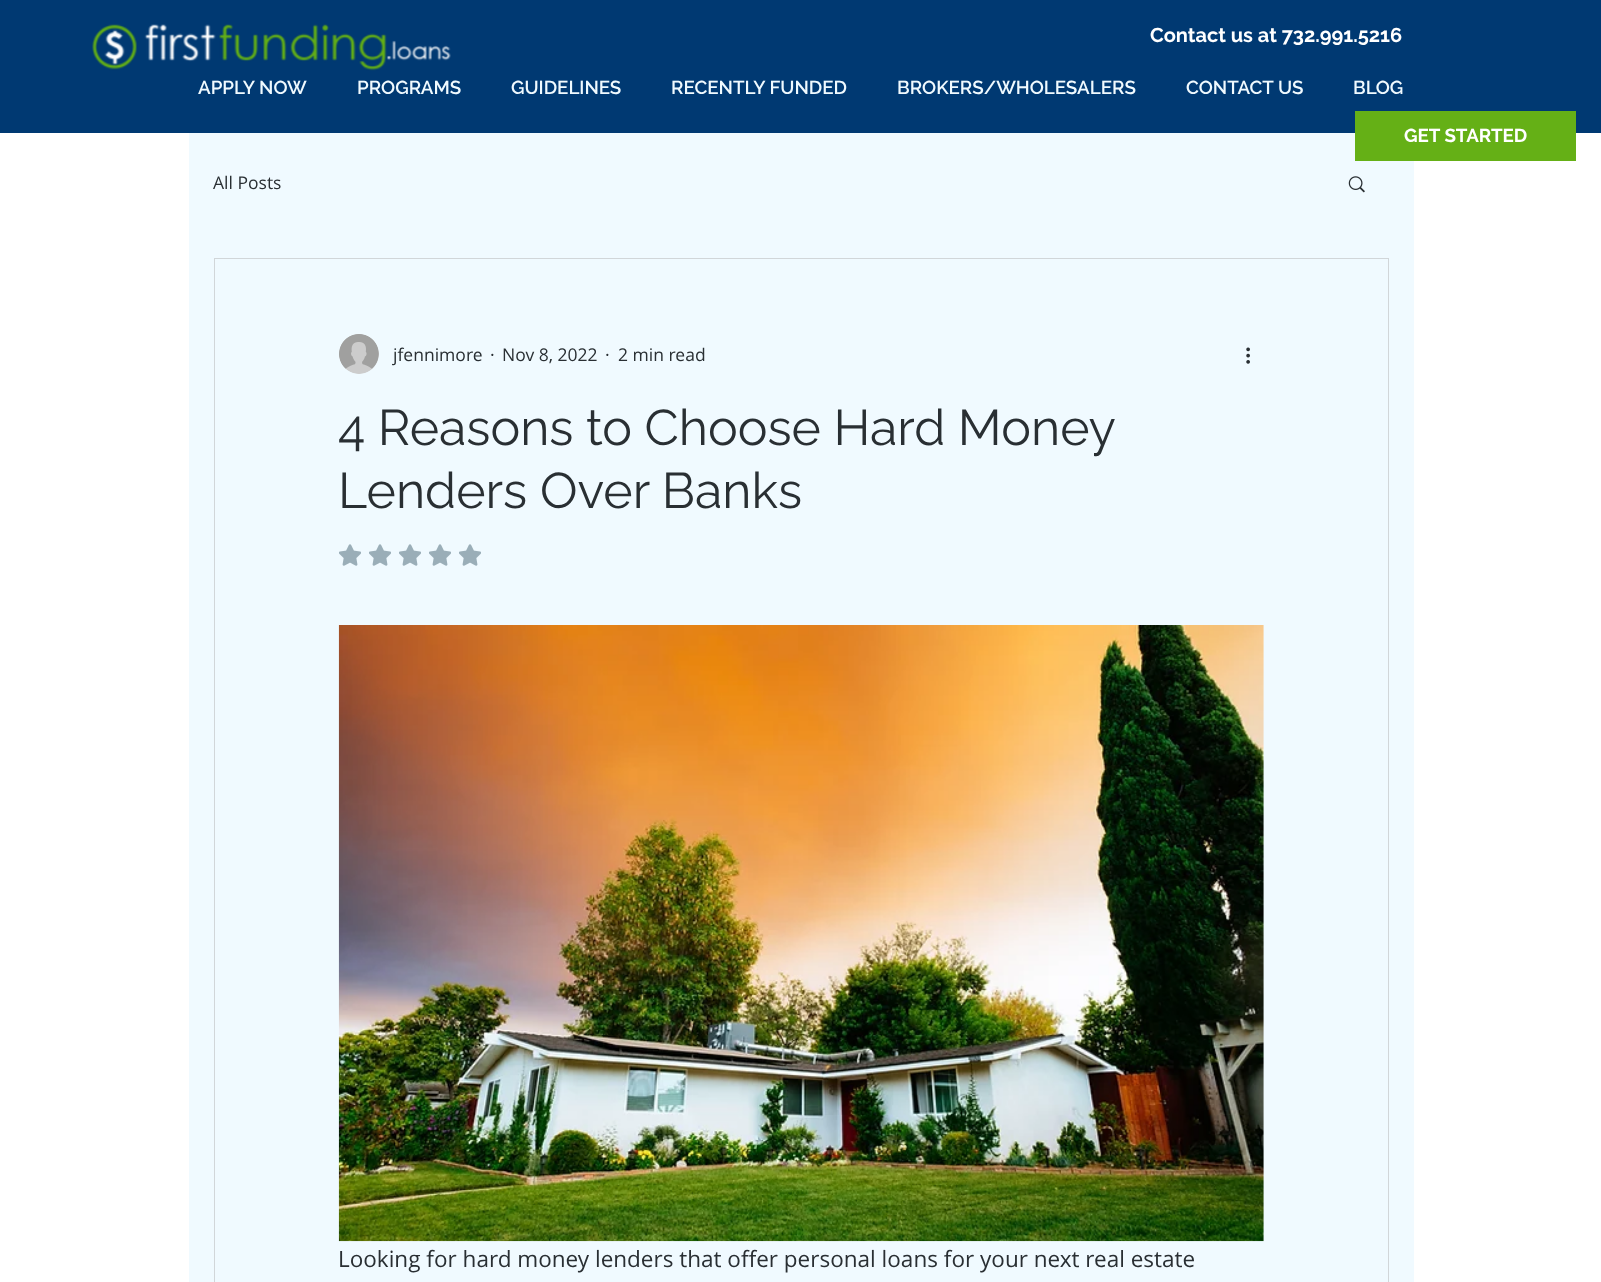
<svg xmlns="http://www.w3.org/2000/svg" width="1601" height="1282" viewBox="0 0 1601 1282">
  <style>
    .t1 { font: bold 20px Raleway; fill: #fff; }
    .t2 { font: 600 18.75px Raleway; fill: #f0faff; }
    .t3 { font: bold 18.75px 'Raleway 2'; fill: #fff; }
    .t4 { font: 17.5px Open Sans; fill: #292f33; }
    .t5 { font: 50px Raleway; fill: #292f33; }
    .t6 { font: 22.5px Open Sans; fill: #292f33; }
  </style>
  <rect width="100%" height="100%" fill="#fff"/>
  <rect x="0" y="0" width="1601" height="133" fill="#003972"/>
  <image x="92" y="24" width="359" height="47" href="images/1.png"/>
  <text x="1150" y="42" class="t1">Contact us at 732.991.5216</text>
  <text x="198" y="94" class="t2">APPLY NOW</text>
  <text x="357" y="94" class="t2">PROGRAMS</text>
  <text x="511" y="94" class="t2">GUIDELINES</text>
  <text x="671" y="94" class="t2">RECENTLY FUNDED</text>
  <text x="897" y="94" class="t2">BROKERS/WHOLESALERS</text>
  <text x="1186" y="94" class="t2">CONTACT US</text>
  <text x="1353" y="94" class="t2">BLOG</text>
  <rect x="189" y="133" width="1225" height="1149" fill="#f0faff"/>
  <rect x="1355" y="111" width="221" height="50" fill="#65b016"/>
  <text x="1404" y="142" class="t3">GET STARTED</text>
  <text x="213" y="189" class="t4">All Posts</text>
  <image x="1348" y="176" width="17" height="17" href="images/2.png"/>
  <rect x="214.5" y="258.5" width="1174" height="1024" fill="none" stroke="#d1d6d9"/>
  <image x="339" y="334" width="40" height="40" href="images/3.png"/>
  <text x="393" y="361" class="t4">jfennimore</text>
  <text x="490" y="361" class="t4">·</text>
  <text x="502" y="361" class="t4">Nov 8, 2022</text>
  <text x="605" y="361" class="t4">·</text>
  <text x="618" y="361" class="t4">2 min read</text>
  <image x="1246" y="347" width="4" height="17" href="images/4.png"/>
  <text x="338" y="445" word-spacing="-0.25" class="t5">4 Reasons to Choose Hard Money</text>
  <text x="338" y="508" class="t5">Lenders Over Banks</text>
  <image x="339" y="544" width="22" height="22" href="images/5.png"/>
  <image x="369" y="544" width="22" height="22" href="images/5.png"/>
  <image x="399" y="544" width="22" height="22" href="images/5.png"/>
  <image x="429" y="544" width="22" height="22" href="images/5.png"/>
  <image x="459" y="544" width="22" height="22" href="images/5.png"/>
  <image x="338" y="625" width="926" height="617" href="images/6.png"/>
  <text x="338" y="1267" class="t6">Looking for hard money lenders that offer personal loans for your next real estate</text>
</svg>
